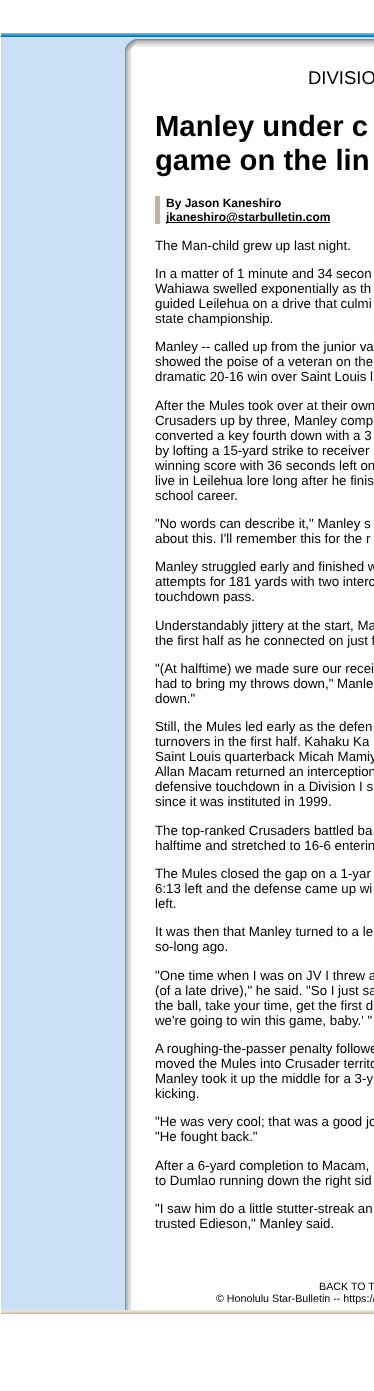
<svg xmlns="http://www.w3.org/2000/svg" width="374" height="1391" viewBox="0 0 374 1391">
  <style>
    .t1 { font: 18.5px Liberation Sans; fill: #000; }
    .t2 { font: bold 29.25px Liberation Sans; fill: #000; }
    .t3 { font: bold 12px Liberation Sans; fill: #000; }
    .t4 { font: 13.3px Liberation Sans; fill: #000; }
    .t5 { font: 10.7px Liberation Sans; fill: #000; }
  </style>
  <rect width="100%" height="100%" fill="#fff"/>
  <image x="1" y="33" width="373" height="4" href="images/1.png"/>
  <rect x="1" y="37" width="373" height="2" fill="#cbe0f5"/>
  <rect x="1" y="39" width="124" height="1271" fill="#cbe0f5"/>
  <image x="125" y="50" width="6" height="1260" href="images/2.png"/>
  <image x="125" y="39" width="11" height="12" href="images/3.png"/>
  <image x="136" y="39" width="238" height="8" href="images/4.png"/>
  <text x="308" y="84" class="t1">DIVISIO</text>
  <text x="155" y="136" class="t2">Manley under c</text>
  <text x="155" y="170" class="t2">game on the lin</text>
  <rect x="155" y="196" width="5" height="28" fill="#bdb6a4"/>
  <text x="166" y="207" class="t3">By Jason Kaneshiro</text>
  <rect x="166" y="222" width="164" height="1" fill="#000"/>
  <text x="166" y="221" class="t3">jkaneshiro@starbulletin.com</text>
  <text x="155" y="250" class="t4">The Man-child grew up last night.</text>
  <text x="155" y="278" class="t4">In a matter of 1 minute and 34 secon</text>
  <text x="155" y="293" class="t4">Wahiawa swelled exponentially as th</text>
  <text x="155" y="308" class="t4">guided Leilehua on a drive that culmi</text>
  <text x="155" y="323" class="t4">state championship.</text>
  <text x="155" y="351" class="t4">Manley -- called up from the junior va</text>
  <text x="155" y="366" class="t4">showed the poise of a veteran on the</text>
  <text x="155" y="381" class="t4">dramatic 20-16 win over Saint Louis l</text>
  <text x="155" y="410" class="t4">After the Mules took over at their own</text>
  <text x="155" y="425" class="t4">Crusaders up by three, Manley comp</text>
  <text x="155" y="440" class="t4">converted a key fourth down with a 3</text>
  <text x="155" y="455" class="t4">by lofting a 15-yard strike to receiver</text>
  <text x="155" y="470" class="t4">winning score with 36 seconds left on</text>
  <text x="155" y="485" class="t4">live in Leilehua lore long after he finis</text>
  <text x="155" y="500" class="t4">school career.</text>
  <text x="155" y="528" class="t4">"No words can describe it," Manley s</text>
  <text x="155" y="543" class="t4">about this. I'll remember this for the r</text>
  <text x="155" y="571" class="t4">Manley struggled early and finished w</text>
  <text x="155" y="586" class="t4">attempts for 181 yards with two interc</text>
  <text x="155" y="601" class="t4">touchdown pass.</text>
  <text x="155" y="630" class="t4">Understandably jittery at the start, Ma</text>
  <text x="155" y="645" class="t4">the first half as he connected on just f</text>
  <text x="155" y="673" class="t4">"(At halftime) we made sure our recei</text>
  <text x="155" y="688" class="t4">had to bring my throws down," Manle</text>
  <text x="155" y="703" class="t4">down."</text>
  <text x="155" y="731" class="t4">Still, the Mules led early as the defen</text>
  <text x="155" y="746" class="t4">turnovers in the first half. Kahaku Ka</text>
  <text x="155" y="761" class="t4">Saint Louis quarterback Micah Mamiy</text>
  <text x="155" y="776" class="t4">Allan Macam returned an interception</text>
  <text x="155" y="791" class="t4">defensive touchdown in a Division I s</text>
  <text x="155" y="806" class="t4">since it was instituted in 1999.</text>
  <text x="155" y="835" class="t4">The top-ranked Crusaders battled ba</text>
  <text x="155" y="850" class="t4">halftime and stretched to 16-6 enterin</text>
  <text x="155" y="878" class="t4">The Mules closed the gap on a 1-yar</text>
  <text x="155" y="893" class="t4">6:13 left and the defense came up wi</text>
  <text x="155" y="908" class="t4">left.</text>
  <text x="155" y="936" class="t4">It was then that Manley turned to a le</text>
  <text x="155" y="951" class="t4">so-long ago.</text>
  <text x="155" y="980" class="t4">"One time when I was on JV I threw a</text>
  <text x="155" y="995" class="t4">(of a late drive)," he said. "So I just sa</text>
  <text x="155" y="1010" class="t4">the ball, take your time, get the first d</text>
  <text x="155" y="1025" class="t4">we're going to win this game, baby.' "</text>
  <text x="155" y="1053" class="t4">A roughing-the-passer penalty followe</text>
  <text x="155" y="1068" class="t4">moved the Mules into Crusader territo</text>
  <text x="155" y="1083" class="t4">Manley took it up the middle for a 3-y</text>
  <text x="155" y="1098" class="t4">kicking.</text>
  <text x="155" y="1126" class="t4">"He was very cool; that was a good jo</text>
  <text x="155" y="1141" class="t4">"He fought back."</text>
  <text x="155" y="1170" class="t4">After a 6-yard completion to Macam,</text>
  <text x="155" y="1185" class="t4">to Dumlao running down the right sid</text>
  <text x="155" y="1213" class="t4">"I saw him do a little stutter-streak an</text>
  <text x="155" y="1228" class="t4">trusted Edieson," Manley said.</text>
  <text x="319" y="1290" class="t5">BACK TO T</text>
  <text x="216" y="1302" class="t5">© Honolulu Star-Bulletin -- https://</text>
  <image x="1" y="1310" width="373" height="4" href="images/5.png"/>
</svg>
